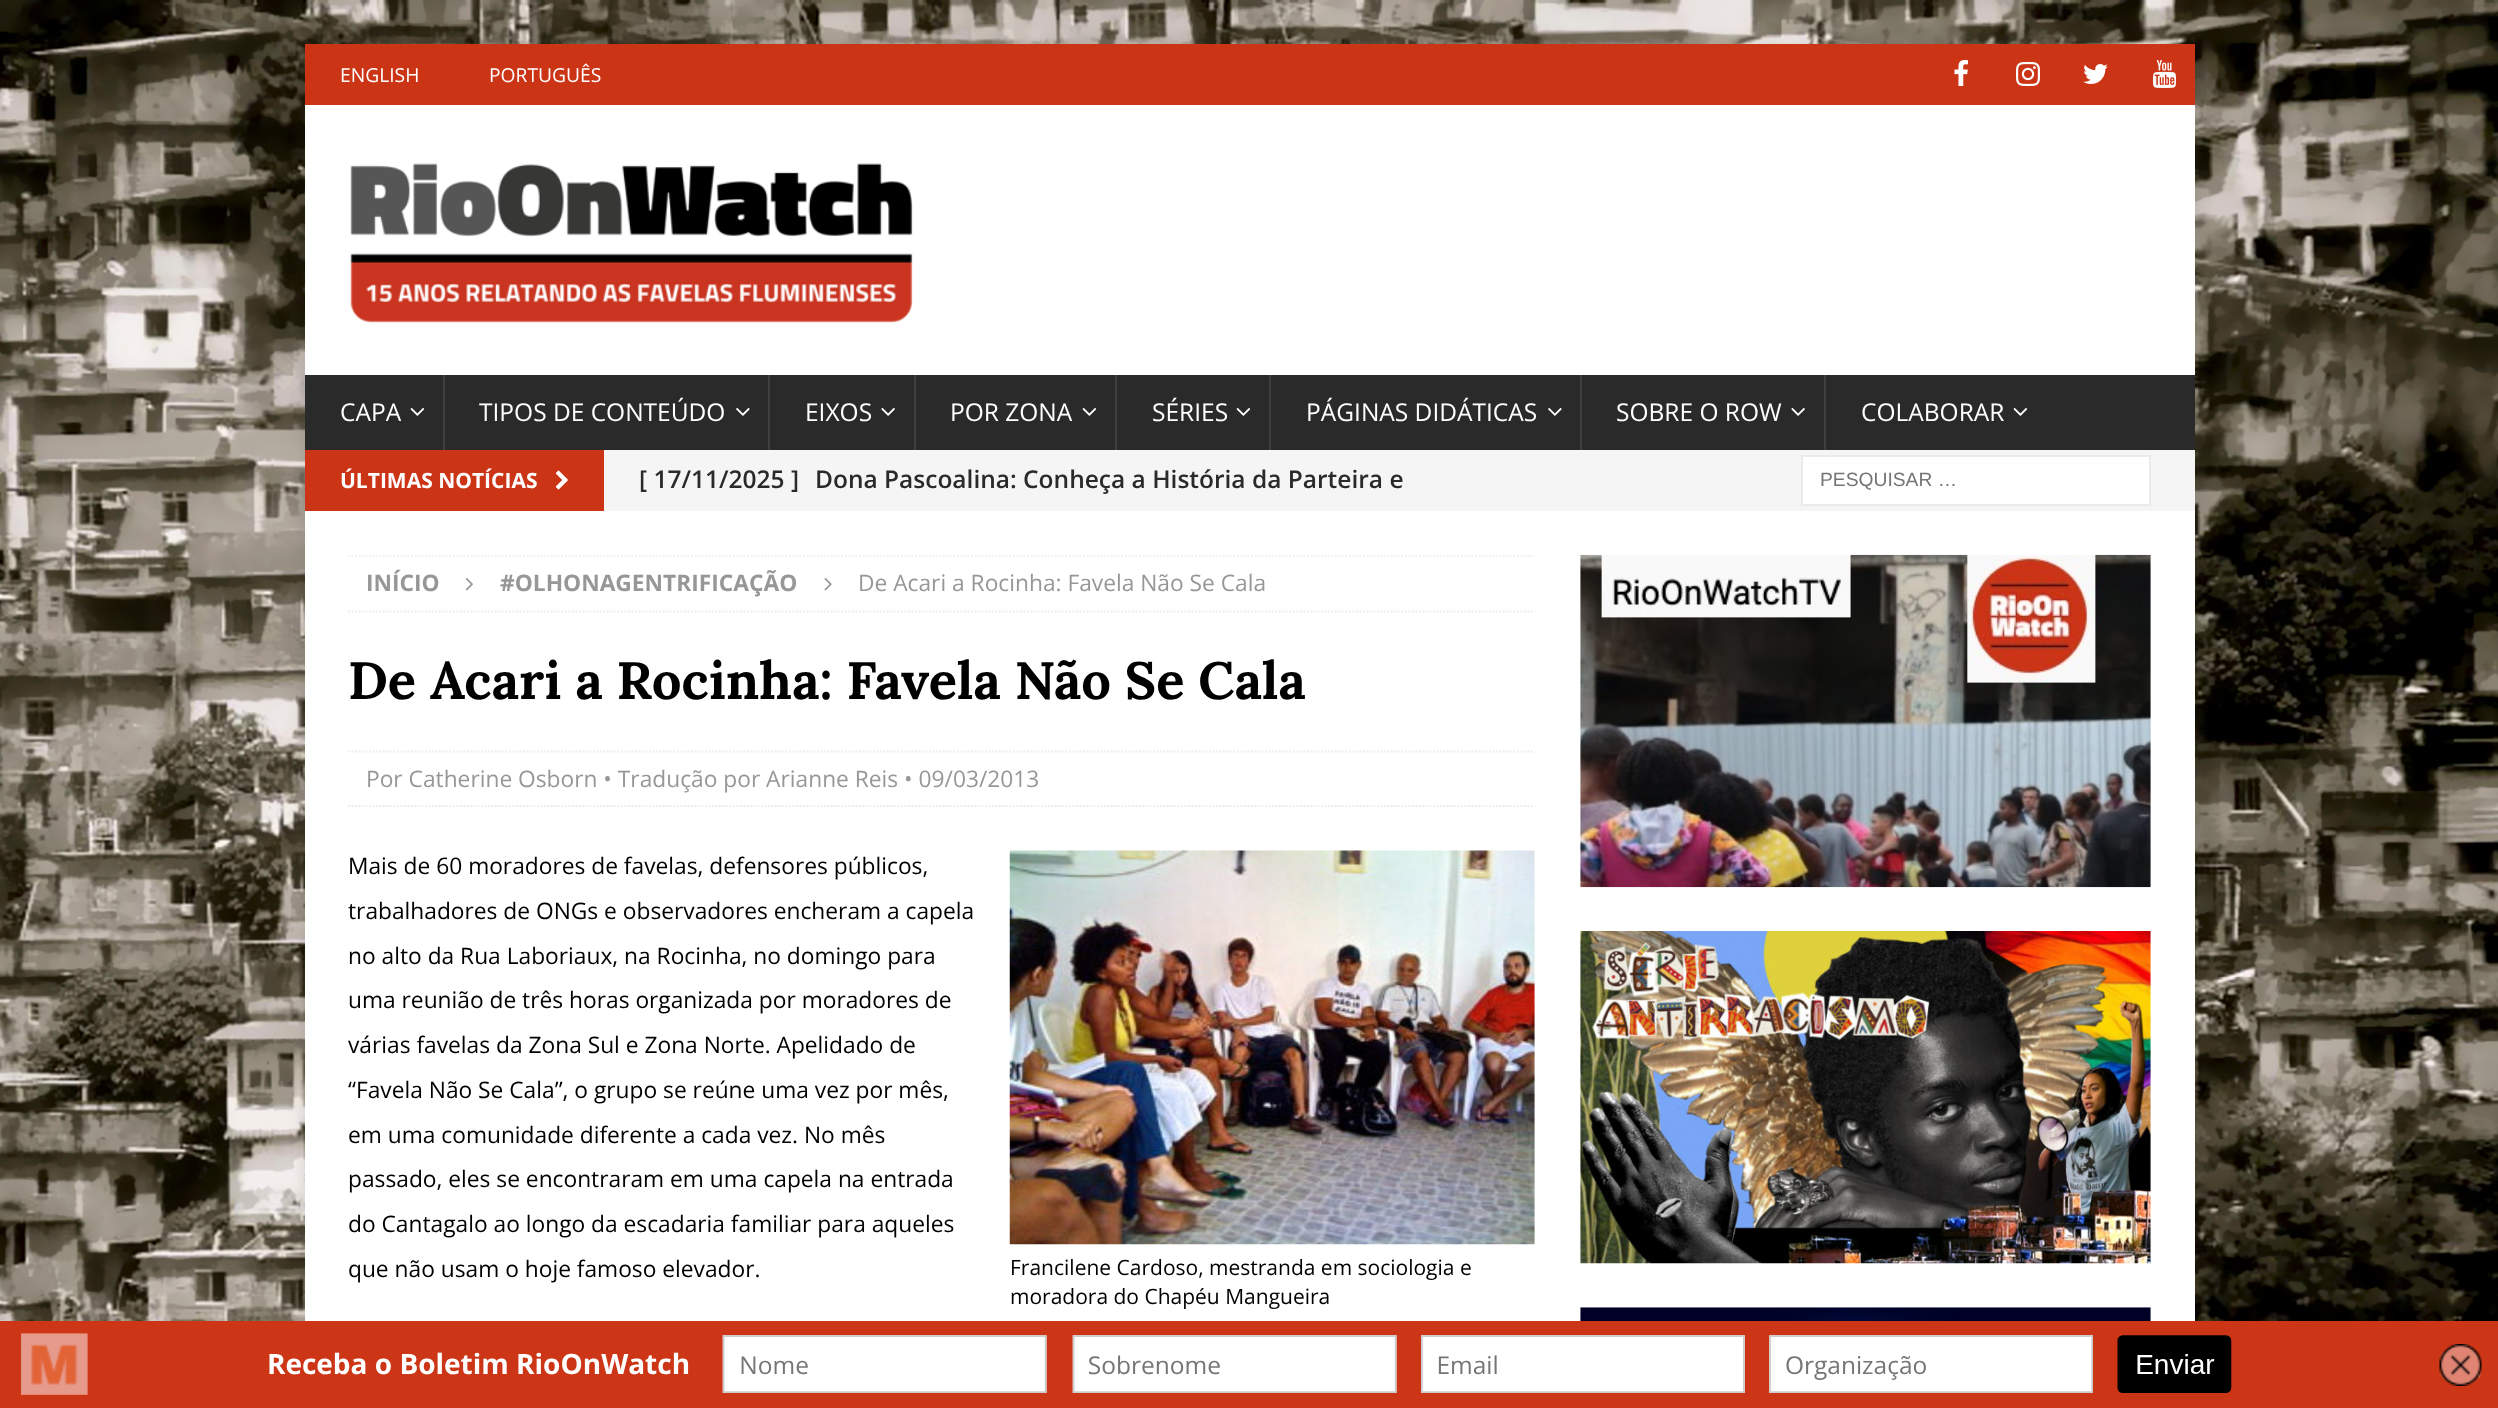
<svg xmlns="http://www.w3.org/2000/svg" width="2498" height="1408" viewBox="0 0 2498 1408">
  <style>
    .t1 { font: 19.25px Open Sans; fill: #fff; }
    .t2 { font: 24.5px Open Sans; fill: #fff; }
    .t3 { font: bold 21px Open Sans; fill: #fff; }
    .t4 { font: 600 24.5px Open Sans; fill: #2a2a2a; }
    .t5 { font: 19.25px Liberation Sans; fill: #757575; }
    .t6 { font: bold 22.75px Open Sans; fill: #979797; }
    .t7 { font: 22.75px Open Sans; fill: #979797; }
    .t8 { font: bold 52.5px Lora; fill: #000; }
    .t9 { font: 22.75px Open Sans; fill: #000; }
    .t10 { font: 21px Open Sans; fill: #000; }
  </style>
  <defs>
    <clipPath id="clip1"><rect x="348" y="555" width="1187" height="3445"/></clipPath>
  </defs>
  <rect width="100%" height="100%" fill="#fff"/>
  <image x="0" y="0" width="2498" height="1321" href="images/1.png"/>
  <rect x="305" y="44" width="1890" height="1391" fill="#3232322b" filter="blur(9px)"/>
  <rect x="305" y="44" width="1890" height="61" fill="#cc3416"/>
  <text x="340" y="82" class="t1">ENGLISH</text>
  <text x="489" y="82" class="t1">PORTUGUÊS</text>
  <image x="1954" y="60" width="14" height="26" href="images/2.png"/>
  <image x="2016" y="62" width="24" height="24" href="images/3.png"/>
  <image x="2083" y="64" width="25" height="20" href="images/4.png"/>
  <image x="2152" y="60" width="25" height="28" href="images/5.png"/>
  <rect x="305" y="105" width="1890" height="270" fill="#fff"/>
  <image x="350" y="163" width="563" height="160" href="images/6.png"/>
  <rect x="305" y="375" width="1890" height="75" fill="#2a2a2a"/>
  <text x="340" y="421" class="t2">CAPA</text>
  <image x="410" y="408" width="15" height="8" href="images/7.png"/>
  <rect x="443" y="375" width="2" height="75" fill="#3f3f3f"/>
  <text x="479" y="421" class="t2">TIPOS DE CONTEÚDO</text>
  <image x="736" y="408" width="14" height="8" href="images/8.png"/>
  <rect x="768" y="375" width="2" height="75" fill="#3f3f3f"/>
  <text x="805" y="421" class="t2">EIXOS</text>
  <image x="881" y="408" width="14" height="8" href="images/9.png"/>
  <rect x="914" y="375" width="2" height="75" fill="#3f3f3f"/>
  <text x="950" y="421" class="t2">POR ZONA</text>
  <image x="1082" y="408" width="15" height="8" href="images/7.png"/>
  <rect x="1115" y="375" width="2" height="75" fill="#3f3f3f"/>
  <text x="1152" y="421" class="t2">SÉRIES</text>
  <image x="1236" y="408" width="15" height="8" href="images/7.png"/>
  <rect x="1269" y="375" width="2" height="75" fill="#3f3f3f"/>
  <text x="1306" y="421" class="t2">PÁGINAS DIDÁTICAS</text>
  <image x="1548" y="408" width="14" height="8" href="images/8.png"/>
  <rect x="1580" y="375" width="2" height="75" fill="#3f3f3f"/>
  <text x="1616" y="421" class="t2">SOBRE O ROW</text>
  <image x="1791" y="408" width="14" height="8" href="images/9.png"/>
  <rect x="1824" y="375" width="2" height="75" fill="#3f3f3f"/>
  <text x="1861" y="421" class="t2">COLABORAR</text>
  <image x="2013" y="408" width="15" height="8" href="images/7.png"/>
  <rect x="604" y="450" width="1591" height="61" fill="#f5f5f5"/>
  <rect x="305" y="450" width="299" height="61" fill="#cc3416"/>
  <text x="340" y="488" class="t3">ÚLTIMAS NOTÍCIAS</text>
  <image x="555" y="470" width="13" height="20" href="images/10.png"/>
  <text x="639" y="488" class="t4">[ 17/11/2025 ]</text>
  <text x="815" y="488" class="t4">Dona Pascoalina: Conheça a História da Parteira e</text>
  <rect x="1802" y="456" width="348" height="49" fill="#fff" stroke="#ebebeb" stroke-width="2"/>
  <text x="1820" y="486" class="t5">PESQUISAR …</text>
  <rect x="305" y="511" width="1890" height="810" fill="#fff"/>
  <g clip-path="url(#clip1)">
    <path d="M348 555.5H1535" fill="none" stroke="#ebebeb" stroke-width="1.8" stroke-dasharray="1.75 1.75"/>
  </g>
  <path d="M348 611.5H1535" fill="none" stroke="#ebebeb" stroke-width="1.8" stroke-dasharray="1.75 1.75"/>
  <text x="366" y="591" class="t6">INÍCIO</text>
  <image x="465" y="577" width="8" height="14" href="images/11.png"/>
  <text x="500" y="591" class="t6">#OLHONAGENTRIFICAÇÃO</text>
  <image x="824" y="577" width="8" height="14" href="images/12.png"/>
  <text x="858" y="591" class="t7">De Acari a Rocinha: Favela Não Se Cala</text>
  <text x="348" y="699" class="t8">De Acari a Rocinha: Favela Não Se Cala</text>
  <path d="M348 751.5H1535" fill="none" stroke="#ebebeb" stroke-width="1.8" stroke-dasharray="1.75 1.75"/>
  <path d="M348 806H1535" fill="none" stroke="#ebebeb" stroke-width="1.8" stroke-dasharray="1.75 1.75"/>
  <text x="366" y="787" class="t7">Por Catherine Osborn • Tradução por Arianne Reis • 09/03/2013</text>
  <text x="348" y="874" class="t9">Mais de 60 moradores de favelas, defensores públicos,</text>
  <text x="348" y="919" class="t9">trabalhadores de ONGs e observadores encheram a capela</text>
  <text x="348" y="964" class="t9">no alto da Rua Laboriaux, na Rocinha, no domingo para</text>
  <text x="348" y="1008" class="t9">uma reunião de três horas organizada por moradores de</text>
  <text x="348" y="1053" class="t9">várias favelas da Zona Sul e Zona Norte. Apelidado de</text>
  <text x="348" y="1098" class="t9">“Favela Não Se Cala”, o grupo se reúne uma vez por mês,</text>
  <text x="348" y="1143" class="t9">em uma comunidade diferente a cada vez. No mês</text>
  <text x="348" y="1187" class="t9">passado, eles se encontraram em uma capela na entrada</text>
  <text x="348" y="1232" class="t9">do Cantagalo ao longo da escadaria familiar para aqueles</text>
  <text x="348" y="1277" class="t9">que não usam o hoje famoso elevador.</text>
  <image x="1009" y="850" width="526" height="395" href="images/13.png"/>
  <text x="1010" y="1275" class="t10">Francilene Cardoso, mestranda em sociologia e</text>
  <text x="1010" y="1304" class="t10">moradora do Chapéu Mangueira</text>
  <image x="1580" y="554" width="571" height="334" href="images/14.png"/>
  <image x="1580" y="931" width="571" height="333" href="images/15.png"/>
  <image x="1580" y="1307" width="571" height="14" href="images/16.png"/>
  <image x="0" y="1321" width="2498" height="87" href="images/17.png"/>
</svg>
